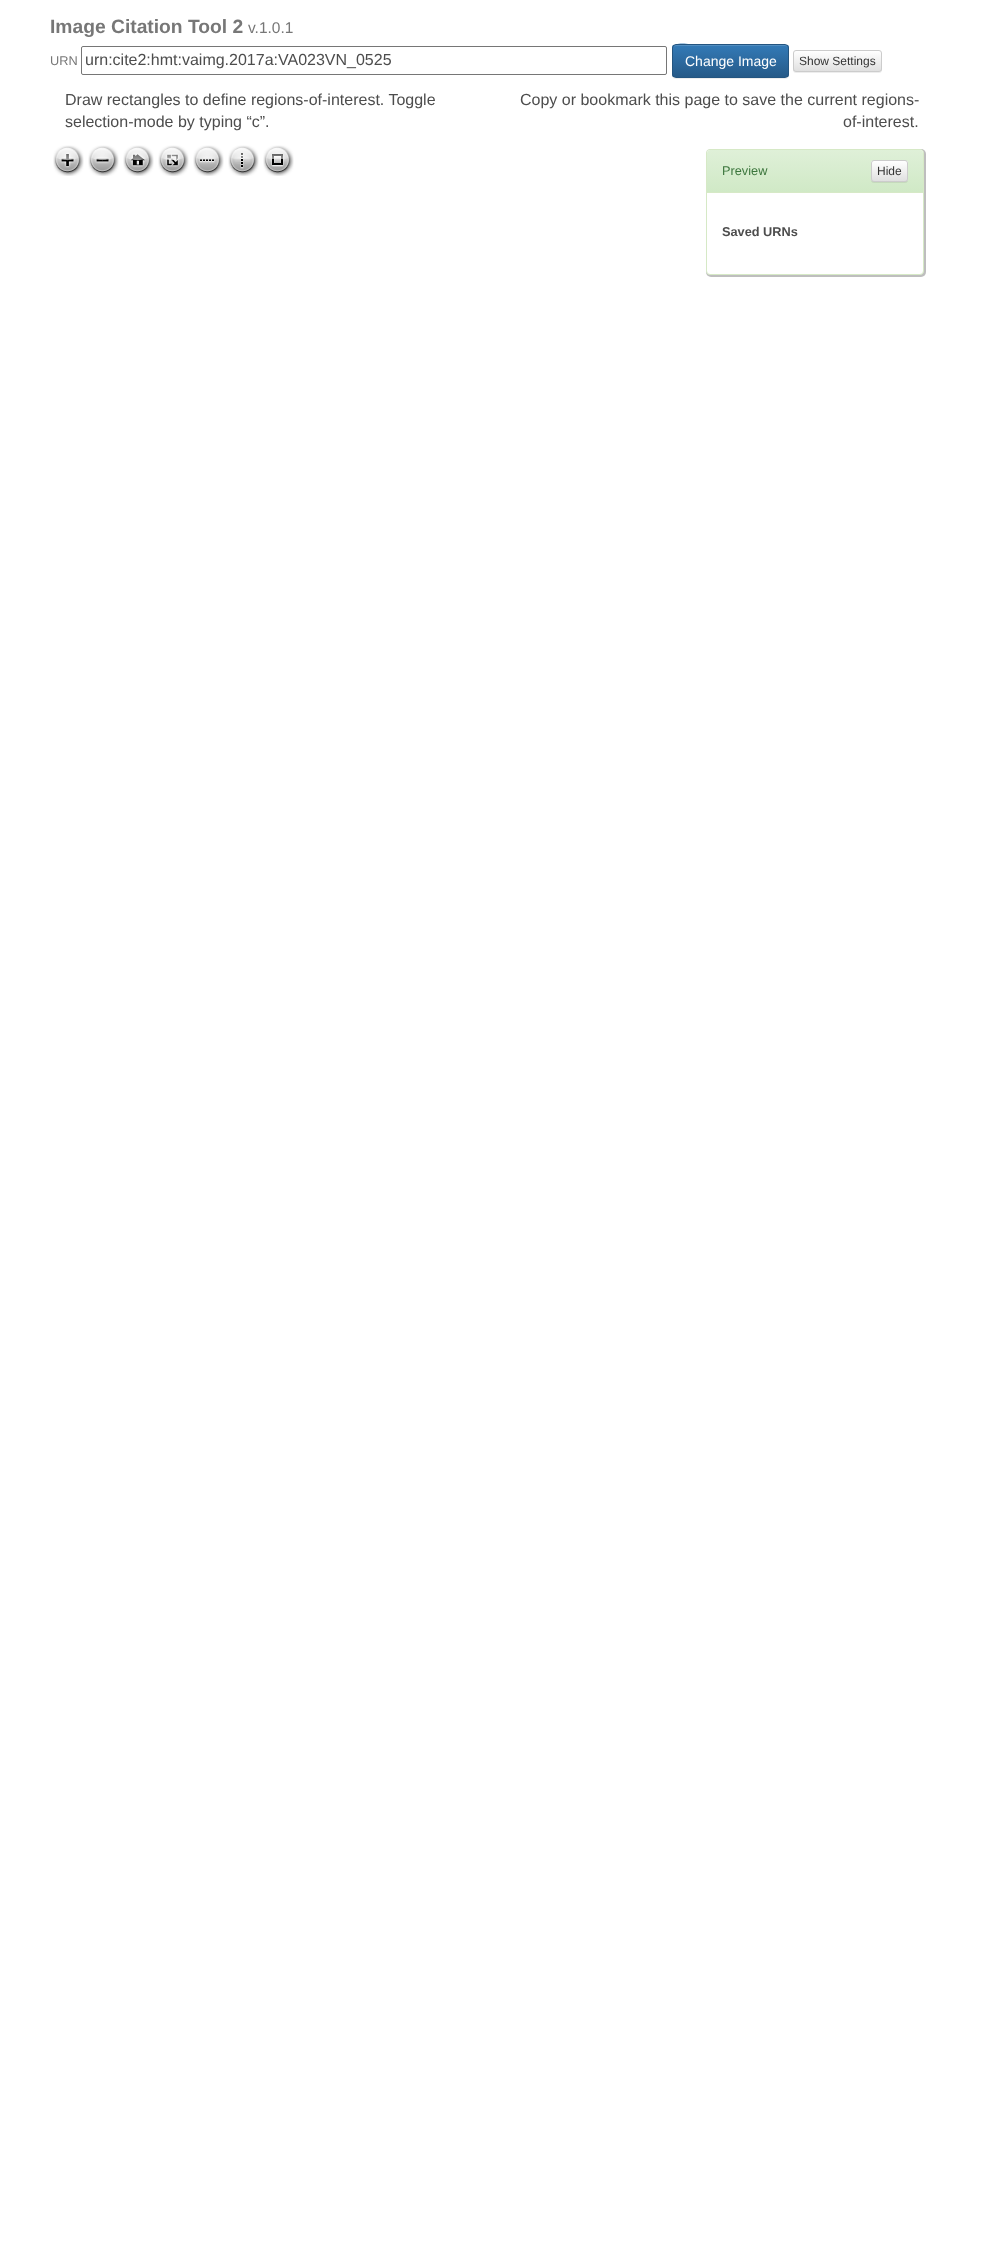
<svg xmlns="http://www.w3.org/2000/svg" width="984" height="2247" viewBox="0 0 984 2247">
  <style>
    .t1 { font: bold 19.25px Liberation Sans; fill: #777; }
    .t2 { font: 15.5px Liberation Sans; fill: #777; }
    .t3 { font: 12.75px Liberation Sans; fill: #777; }
    .t4 { font: 16px Liberation Sans; fill: #4d4d4d; }
    .t5 { font: 14px Liberation Sans; fill: #fff; }
    .t6 { font: 12px Liberation Sans; fill: #333; }
    .t7 { font: 12.75px Liberation Sans; fill: #3c763d; }
    .t8 { font: bold 12.75px Liberation Sans; fill: #4d4d4d; }
  </style>
  <defs>
    <clipPath id="clip1"><rect x="672" y="44" width="117" height="34" rx="4"/></clipPath>
    <linearGradient id="g1" gradientUnits="userSpaceOnUse" x1="731" y1="45" x2="731" y2="77"><stop offset="0" stop-color="#337ab7"/><stop offset="1" stop-color="#265a88"/></linearGradient>
    <clipPath id="clip2"><rect x="793" y="50" width="89" height="22" rx="3"/></clipPath>
    <linearGradient id="g2" gradientUnits="userSpaceOnUse" x1="838" y1="51" x2="838" y2="71"><stop offset="0" stop-color="#fff"/><stop offset="1" stop-color="#e0e0e0"/></linearGradient>
    <linearGradient id="g3" gradientUnits="userSpaceOnUse" x1="815" y1="150" x2="815" y2="192"><stop offset="0" stop-color="#dff0d8"/><stop offset="1" stop-color="#d0e9c6"/></linearGradient>
    <clipPath id="clip3"><rect x="871" y="160" width="37" height="22" rx="3"/></clipPath>
    <linearGradient id="g4" gradientUnits="userSpaceOnUse" x1="890" y1="161" x2="890" y2="181"><stop offset="0" stop-color="#fff"/><stop offset="1" stop-color="#e0e0e0"/></linearGradient>
  </defs>
  <rect width="100%" height="100%" fill="#fff"/>
  <text x="50" y="33" class="t1">Image Citation Tool 2</text>
  <text x="248" y="33" class="t2">v.1.0.1</text>
  <text x="50" y="65" class="t3">URN</text>
  <rect x="81.5" y="46.5" width="585" height="28" rx="1.5" fill="none" stroke="#767676"/>
  <text x="85" y="65" class="t4">urn:cite2:hmt:vaimg.2017a:VA023VN_0525</text>
  <rect x="672" y="45" width="117" height="34" rx="4" fill="#00000012" filter="blur(0.5px)"/>
  <g clip-path="url(#clip1)">
    <rect x="672" y="45" width="117" height="32" fill="url(#g1)"/>
  </g>
  <path d="M676 46H785C787 46 788 47 788 49C788 47 787 45 785 45H694C693 45 673 40 673 49C673 47 674 46 676 46Z" fill="#528ec1"/>
  <rect x="672.5" y="44.5" width="116" height="33" rx="3.5" fill="none" stroke="#245580"/>
  <text x="685" y="66" class="t5">Change Image</text>
  <rect x="793" y="51" width="89" height="22" rx="3" fill="#00000012" filter="blur(0.5px)"/>
  <g clip-path="url(#clip2)">
    <rect x="793" y="51" width="89" height="20" fill="url(#g2)"/>
  </g>
  <rect x="793.5" y="50.5" width="88" height="21" rx="2.5" fill="none" stroke="#ccc"/>
  <text x="799" y="65" class="t6">Show Settings</text>
  <text x="65" y="105" class="t4">Draw rectangles to define regions-of-interest. Toggle</text>
  <text x="65" y="127" class="t4">selection-mode by typing “c”.</text>
  <text x="520" y="105" class="t4">Copy or bookmark this page to save the current regions-</text>
  <text x="843" y="127" class="t4">of-interest.</text>
  <image x="53" y="145" width="31" height="31" href="images/1.png"/>
  <image x="54" y="146" width="29" height="30" href="images/2.png"/>
  <image x="88" y="145" width="31" height="31" href="images/3.png"/>
  <image x="89" y="146" width="29" height="30" href="images/4.png"/>
  <image x="123" y="145" width="31" height="31" href="images/5.png"/>
  <image x="124" y="146" width="29" height="30" href="images/6.png"/>
  <image x="158" y="145" width="31" height="31" href="images/7.png"/>
  <image x="159" y="146" width="29" height="30" href="images/8.png"/>
  <image x="193" y="145" width="31" height="31" href="images/9.png"/>
  <image x="194" y="146" width="29" height="30" href="images/10.png"/>
  <image x="228" y="145" width="31" height="31" href="images/11.png"/>
  <image x="229" y="146" width="29" height="30" href="images/12.png"/>
  <image x="263" y="145" width="31" height="31" href="images/13.png"/>
  <image x="264" y="146" width="29" height="30" href="images/14.png"/>
  <rect x="706" y="149" width="220" height="128" rx="5" fill="#7d7d7d80" filter="blur(0.5px)"/>
  <rect x="706.5" y="149.5" width="217" height="125" rx="3.5" fill="#fff" stroke="#d6e9c6"/>
  <path d="M710 150H920C921.5 150 923 151.5 923 153V192H707V153C707 151.5 708.5 150 710 150Z" fill="url(#g3)"/>
  <rect x="707" y="192" width="216" height="1" fill="#d6e9c6"/>
  <text x="722" y="175" class="t7">Preview</text>
  <rect x="871" y="161" width="37" height="22" rx="3" fill="#00000012" filter="blur(0.5px)"/>
  <g clip-path="url(#clip3)">
    <rect x="871" y="161" width="37" height="20" fill="url(#g4)"/>
  </g>
  <rect x="871.5" y="160.5" width="36" height="21" rx="2.5" fill="none" stroke="#ccc"/>
  <text x="877" y="175" class="t6">Hide</text>
  <text x="722" y="236" class="t8">Saved URNs</text>
</svg>
